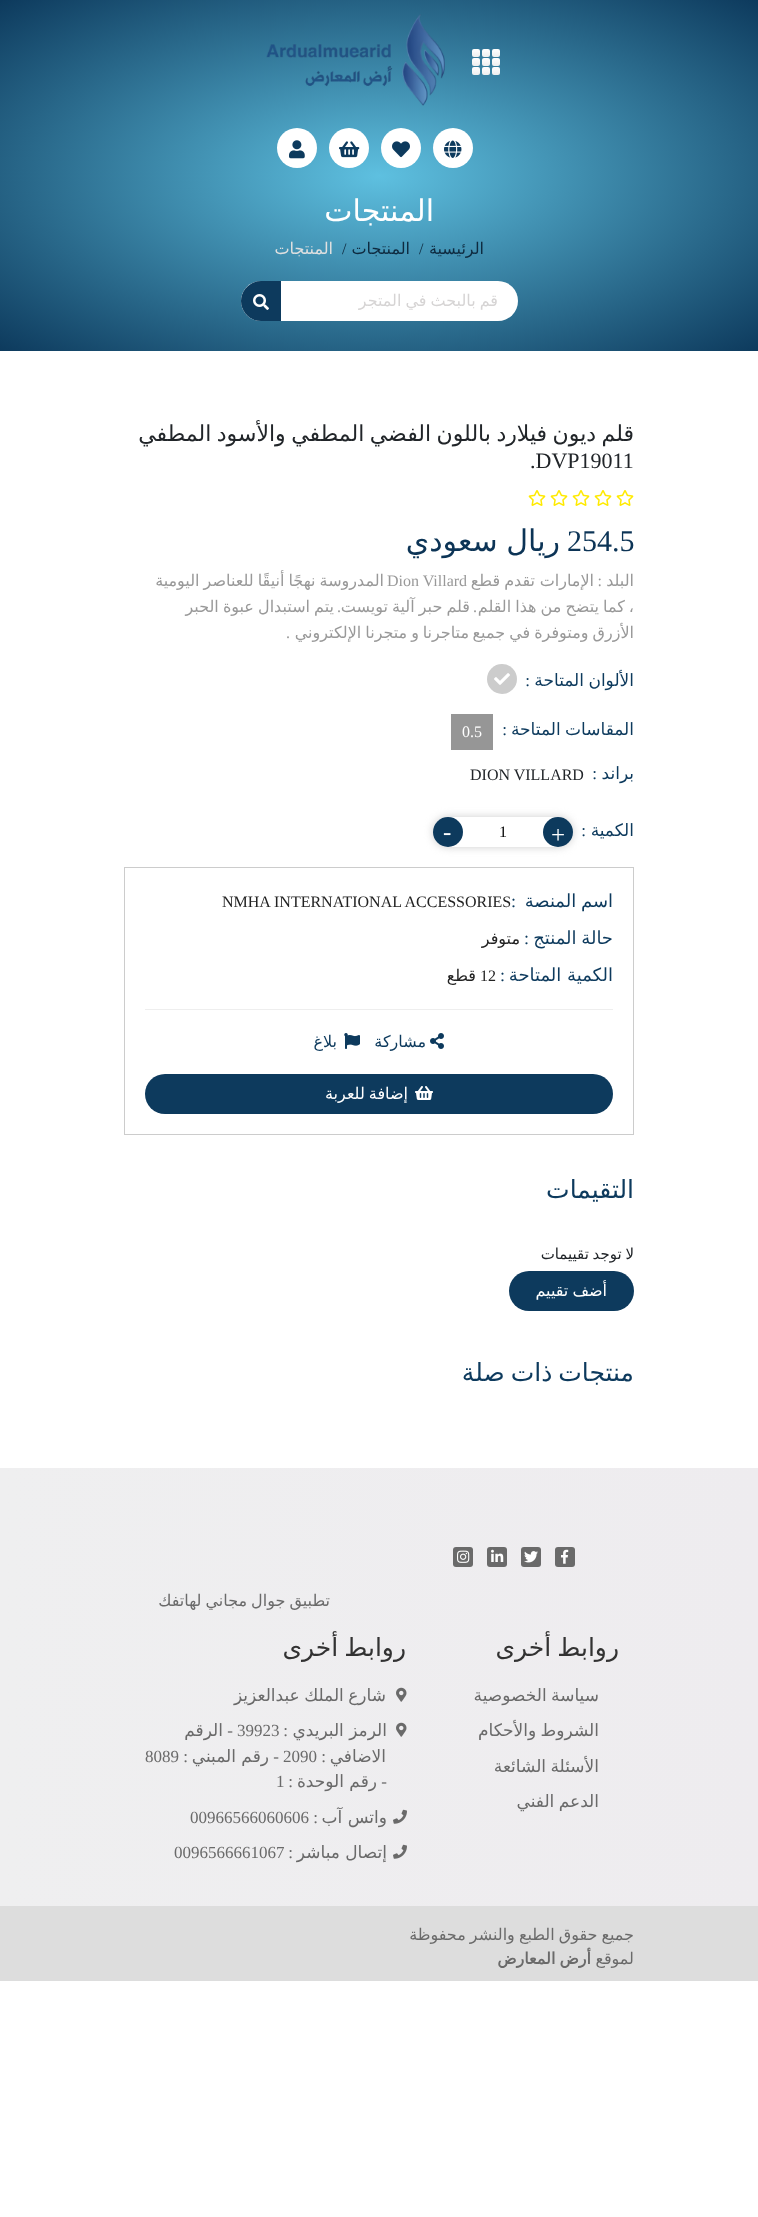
<svg xmlns="http://www.w3.org/2000/svg" width="758" height="2217" viewBox="0 0 758 2217">
  <style>
    .t1 { font: 30px DejaVu Sans; direction: rtl; fill: #fff; }
    .t2 { font: 16px DejaVu Sans; direction: rtl; fill: #0e2a3f; }
    .t3 { font: 16px Liberation Serif; fill: #0e2a3f; }
    .t4 { font: 16px DejaVu Sans; direction: rtl; fill: #e0e0e0; }
    .t5 { font: 16px DejaVu Sans; direction: rtl; fill: #d6d4d4; }
    .t6 { font: 22px DejaVu Sans; direction: rtl; fill: #212529; }
    .t7 { font: 22px Liberation Serif; fill: #212529; }
    .t8 { font: 30px Liberation Serif; fill: #0c3456; }
    .t9 { font: 30px DejaVu Sans; direction: rtl; fill: #0c3456; }
    .t10 { font: 16px DejaVu Sans; direction: rtl; fill: #999; }
    .t11 { font: 16px Liberation Serif; direction: rtl; fill: #999; }
    .t12 { font: 16px Liberation Serif; fill: #999; }
    .t13 { font: 17px DejaVu Sans; direction: rtl; fill: #0d3a5d; }
    .t14 { font: 17px Liberation Serif; direction: rtl; fill: #0d3a5d; }
    .t15 { font: 16px Liberation Serif; fill: #fff; }
    .t16 { font: 16px Liberation Serif; fill: #212529; }
    .t17 { font: 25px Liberation Serif; fill: #fff; }
    .t18 { font: 16px Liberation Serif; fill: #000; }
    .t19 { font: 18px DejaVu Sans; direction: rtl; fill: #0d3a5d; }
    .t20 { font: 18px Liberation Serif; fill: #0d3a5d; }
    .t21 { font: 16px Liberation Serif; fill: #222; }
    .t22 { font: 18px Liberation Serif; direction: rtl; fill: #0d3a5d; }
    .t23 { font: 16px DejaVu Sans; direction: rtl; fill: #222; }
    .t24 { font: 16px DejaVu Sans; direction: rtl; fill: #0d3a5d; }
    .t25 { font: 16px DejaVu Sans; direction: rtl; fill: #fff; }
    .t26 { font: 25px DejaVu Sans; direction: rtl; fill: #0d3a5d; }
    .t27 { font: 15px DejaVu Sans; direction: rtl; fill: #212529; }
    .t28 { font: 16px DejaVu Sans; direction: rtl; fill: #6a6a6a; }
    .t29 { font: 25px DejaVu Sans; direction: rtl; fill: #323232; }
    .t30 { font: 17px DejaVu Sans; direction: rtl; fill: #6a6a6a; }
    .t31 { font: 17px Liberation Serif; direction: rtl; fill: #6a6a6a; }
    .t32 { font: 17px Liberation Serif; fill: #6a6a6a; }
    .t33 { font: bold 16px DejaVu Sans; direction: rtl; fill: #6a6a6a; }
  </style>
  <defs>
    <radialGradient id="g1" gradientUnits="userSpaceOnUse" cx="0" cy="0" r="1" gradientTransform="matrix(536 0 0 248 379 176)"><stop offset="0" stop-color="#5ec0e0"/><stop offset="1" stop-color="#0d3a5d"/></radialGradient>
    <linearGradient id="g2" gradientUnits="userSpaceOnUse" x1="486" y1="49" x2="486" y2="57"><stop offset="0" stop-color="#fff"/><stop offset="1" stop-color="#eee"/></linearGradient>
    <linearGradient id="g3" gradientUnits="userSpaceOnUse" x1="496" y1="49" x2="496" y2="57"><stop offset="0" stop-color="#fff"/><stop offset="1" stop-color="#eee"/></linearGradient>
    <linearGradient id="g4" gradientUnits="userSpaceOnUse" x1="476" y1="49" x2="476" y2="57"><stop offset="0" stop-color="#fff"/><stop offset="1" stop-color="#eee"/></linearGradient>
    <linearGradient id="g5" gradientUnits="userSpaceOnUse" x1="486" y1="58" x2="486" y2="66"><stop offset="0" stop-color="#fff"/><stop offset="1" stop-color="#eee"/></linearGradient>
    <linearGradient id="g6" gradientUnits="userSpaceOnUse" x1="496" y1="58" x2="496" y2="66"><stop offset="0" stop-color="#fff"/><stop offset="1" stop-color="#eee"/></linearGradient>
    <linearGradient id="g7" gradientUnits="userSpaceOnUse" x1="476" y1="58" x2="476" y2="66"><stop offset="0" stop-color="#fff"/><stop offset="1" stop-color="#eee"/></linearGradient>
    <linearGradient id="g8" gradientUnits="userSpaceOnUse" x1="486" y1="67" x2="486" y2="75"><stop offset="0" stop-color="#fff"/><stop offset="1" stop-color="#eee"/></linearGradient>
    <linearGradient id="g9" gradientUnits="userSpaceOnUse" x1="496" y1="67" x2="496" y2="75"><stop offset="0" stop-color="#fff"/><stop offset="1" stop-color="#eee"/></linearGradient>
    <linearGradient id="g10" gradientUnits="userSpaceOnUse" x1="476" y1="67" x2="476" y2="75"><stop offset="0" stop-color="#fff"/><stop offset="1" stop-color="#eee"/></linearGradient>
    <clipPath id="clip1"><rect x="291" y="291" width="207" height="19"/></clipPath>
    <linearGradient id="g11" gradientUnits="userSpaceOnUse" x1="758" y1="1725" x2="0" y2="1725"><stop offset="0" stop-color="#eeecef"/><stop offset="1" stop-color="#efeff0"/></linearGradient>
  </defs>
  <rect width="100%" height="100%" fill="#fff"/>
  <rect x="0" y="0" width="758" height="351" fill="url(#g1)"/>
  <rect x="482" y="49" width="8" height="8" rx="2" fill="url(#g2)"/>
  <rect x="492" y="49" width="8" height="8" rx="2" fill="url(#g3)"/>
  <rect x="472" y="49" width="8" height="8" rx="2" fill="url(#g4)"/>
  <rect x="482" y="58" width="8" height="8" rx="2" fill="url(#g5)"/>
  <rect x="492" y="58" width="8" height="8" rx="2" fill="url(#g6)"/>
  <rect x="472" y="58" width="8" height="8" rx="2" fill="url(#g7)"/>
  <rect x="482" y="67" width="8" height="8" rx="2" fill="url(#g8)"/>
  <rect x="492" y="67" width="8" height="8" rx="2" fill="url(#g9)"/>
  <rect x="472" y="67" width="8" height="8" rx="2" fill="url(#g10)"/>
  <image x="266" y="14" width="179" height="92" href="images/1.png"/>
  <circle cx="453" cy="148" r="20" fill="#fff"/>
  <image x="444" y="140" width="18" height="18" href="images/2.png"/>
  <circle cx="401" cy="148" r="20" fill="#fff"/>
  <image x="392" y="141" width="18" height="17" href="images/3.png"/>
  <circle cx="349" cy="148" r="20" fill="#fff"/>
  <image x="339" y="141" width="21" height="17" href="images/4.png"/>
  <circle cx="297" cy="148" r="20" fill="#fff"/>
  <image x="289" y="140" width="16" height="19" href="images/5.png"/>
  <text x="434" y="221" class="t1">المنتجات</text>
  <text x="484" y="254" class="t2">الرئيسية</text>
  <text x="419" y="254" class="t3">/</text>
  <text x="410" y="254" class="t2">المنتجات</text>
  <text x="342" y="254" class="t3">/</text>
  <text x="333" y="254" class="t4">المنتجات</text>
  <rect x="241" y="281" width="277" height="40" rx="20" fill="#fff"/>
  <g clip-path="url(#clip1)">
    <text x="498" y="306" word-spacing="-1" class="t5">قم بالبحث في المتجر</text>
  </g>
  <path d="M261 281H281V321H261C250 321 241 312 241 301C241 290 250 281 261 281Z" fill="#0d3a5d"/>
  <image x="253" y="294" width="16" height="16" href="images/6.png"/>
  <text x="634" y="441" word-spacing="-1.5" class="t6">قلم ديون فيلارد باللون الفضي المطفي والأسود المطفي</text>
  <text x="530" y="468" class="t7">.DVP19011</text>
  <image x="616" y="490" width="18" height="16" href="images/7.png"/>
  <image x="594" y="490" width="18" height="16" href="images/7.png"/>
  <image x="572" y="490" width="18" height="16" href="images/7.png"/>
  <image x="550" y="490" width="18" height="16" href="images/7.png"/>
  <image x="528" y="490" width="18" height="16" href="images/7.png"/>
  <text x="567" y="551" class="t8">254.5</text>
  <text x="560" y="551" word-spacing="-1" class="t9">ريال سعودي</text>
  <text x="634" y="586" class="t10">البلد</text>
  <text x="602" y="586" class="t11">:</text>
  <text x="594" y="586" class="t10">الإمارات</text>
  <text x="535" y="586" word-spacing="-1" class="t10">تقدم قطع</text>
  <text x="387" y="586" class="t12">Dion Villard</text>
  <text x="384" y="586" word-spacing="-1" class="t10">المدروسة نهجًا أنيقًا للعناصر اليومية</text>
  <text x="634" y="612" word-spacing="-1" class="t10">، كما يتضح من هذا القلم</text>
  <text x="477" y="612" class="t11">.</text>
  <text x="470" y="612" word-spacing="-1" class="t10">قلم حبر آلية تويست</text>
  <text x="341" y="612" class="t11">.</text>
  <text x="334" y="612" word-spacing="-1" class="t10">يتم استبدال عبوة الحبر</text>
  <text x="634" y="638" word-spacing="-1" class="t10">الأزرق ومتوفرة في جميع</text>
  <text x="469" y="638" class="t10">متاجرنا</text>
  <text x="419" y="638" word-spacing="-1" class="t10">و متجرنا الإلكتروني</text>
  <text x="290" y="638" class="t11">.</text>
  <text x="634" y="686" word-spacing="-1" class="t13">الألوان المتاحة</text>
  <text x="530" y="686" class="t14">:</text>
  <circle cx="502" cy="679" r="15" fill="#ccc"/>
  <image x="494" y="673" width="16" height="12" href="images/8.png"/>
  <text x="634" y="735" word-spacing="-1" class="t13">المقاسات المتاحة</text>
  <text x="507" y="735" class="t14">:</text>
  <rect x="451" y="714" width="42" height="36" fill="#969696"/>
  <text x="462" y="737" class="t15">0.5</text>
  <text x="634" y="779" class="t13">براند</text>
  <text x="597" y="779" class="t14">:</text>
  <text x="470" y="780" class="t16">DION VILLARD</text>
  <text x="634" y="836" class="t13">الكمية</text>
  <text x="586" y="836" class="t14">:</text>
  <rect x="433" y="817" width="140" height="30" rx="15" fill="#ccc" filter="blur(4px)"/>
  <rect x="433" y="817" width="140" height="30" rx="15" fill="#fff"/>
  <circle cx="558" cy="832" r="15" fill="#0d3a5d"/>
  <text x="551" y="843" class="t17">+</text>
  <text x="499" y="837" class="t18">1</text>
  <circle cx="448" cy="832" r="15" fill="#0d3a5d"/>
  <text x="443" y="840" class="t17">-</text>
  <rect x="124.5" y="867.5" width="509" height="267" fill="none" stroke="#ccc"/>
  <text x="613" y="907" word-spacing="-1" class="t19">اسم المنصة</text>
  <text x="511" y="907" class="t20">:</text>
  <text x="222" y="907" class="t21">NMHA INTERNATIONAL ACCESSORIES</text>
  <text x="613" y="944" word-spacing="-1" class="t19">حالة المنتج</text>
  <text x="529" y="944" class="t22">:</text>
  <text x="520" y="944" class="t23">متوفر</text>
  <text x="613" y="981" class="t19">الكمية المتاحة</text>
  <text x="505" y="981" class="t22">:</text>
  <text x="480" y="981" class="t21">12</text>
  <text x="476" y="981" class="t23">قطع</text>
  <rect x="145" y="1009" width="468" height="1" fill="#eee"/>
  <image x="430" y="1033" width="14" height="16" href="images/9.png"/>
  <text x="426" y="1047" class="t24">مشاركة</text>
  <image x="344" y="1033" width="16" height="16" href="images/10.png"/>
  <text x="337" y="1047" class="t24">بلاغ</text>
  <rect x="145" y="1074" width="468" height="40" rx="20" fill="#0d3a5d"/>
  <image x="415" y="1086" width="18" height="14" href="images/11.png"/>
  <text x="408" y="1099" word-spacing="-1" class="t25">إضافة للعربة</text>
  <text x="634" y="1198" class="t26">التقيمات</text>
  <text x="634" y="1259" word-spacing="-1" class="t27">لا توجد تقييمات</text>
  <rect x="509" y="1271" width="125" height="40" rx="20" fill="#0d3a5d"/>
  <text x="607" y="1296" word-spacing="-1" class="t25">أضف تقييم</text>
  <text x="634" y="1381" word-spacing="-2" class="t26">منتجات ذات صلة</text>
  <rect x="0" y="1468" width="758" height="438" fill="url(#g11)"/>
  <rect x="555" y="1547" width="20" height="20" rx="3" fill="#6a6a6a"/>
  <image x="561" y="1549" width="8" height="15" href="images/12.png"/>
  <rect x="521" y="1547" width="20" height="20" rx="3" fill="#6a6a6a"/>
  <image x="524" y="1551" width="14" height="12" href="images/13.png"/>
  <rect x="487" y="1547" width="20" height="20" rx="3" fill="#6a6a6a"/>
  <image x="491" y="1549" width="13" height="13" href="images/14.png"/>
  <rect x="453" y="1547" width="20" height="20" rx="3" fill="#6a6a6a"/>
  <image x="457" y="1550" width="13" height="13" href="images/15.png"/>
  <text x="330" y="1606" word-spacing="-1" class="t28">تطبيق جوال مجاني لهاتفك</text>
  <text x="619" y="1656" word-spacing="-2" class="t29">روابط أخرى</text>
  <text x="599" y="1701" word-spacing="-1" class="t30">سياسة الخصوصية</text>
  <text x="599" y="1736" word-spacing="-1" class="t30">الشروط والأحكام</text>
  <text x="599" y="1772" word-spacing="-1" class="t30">الأسئلة الشائعة</text>
  <text x="599" y="1807" word-spacing="-1" class="t30">الدعم الفني</text>
  <text x="406" y="1656" word-spacing="-2" class="t29">روابط أخرى</text>
  <image x="396" y="1687" width="11" height="15" href="images/16.png"/>
  <text x="386" y="1701" word-spacing="-1" class="t30">شارع الملك عبدالعزيز</text>
  <image x="396" y="1722" width="11" height="15" href="images/16.png"/>
  <text x="387" y="1736" class="t30">الرمز البريدي</text>
  <text x="288" y="1736" class="t31">:</text>
  <text x="237" y="1736" class="t32">39923</text>
  <text x="233" y="1736" class="t31">-</text>
  <text x="223" y="1736" class="t30">الرقم</text>
  <text x="386" y="1762" class="t30">الاضافي</text>
  <text x="326" y="1762" class="t31">:</text>
  <text x="283" y="1762" class="t32">2090</text>
  <text x="279" y="1762" class="t31">-</text>
  <text x="269" y="1762" class="t30">رقم المبني</text>
  <text x="188" y="1762" class="t31">:</text>
  <text x="145" y="1762" class="t32">8089</text>
  <text x="387" y="1787" class="t31">-</text>
  <text x="377" y="1787" class="t30">رقم الوحدة</text>
  <text x="293" y="1787" class="t31">:</text>
  <text x="276" y="1787" class="t32">1</text>
  <image x="393" y="1809" width="14" height="15" href="images/17.png"/>
  <text x="387" y="1823" class="t30">واتس آب</text>
  <text x="318" y="1823" class="t31">:</text>
  <text x="190" y="1823" class="t32">00966566060606</text>
  <image x="393" y="1844" width="14" height="15" href="images/17.png"/>
  <text x="387" y="1858" class="t30">إتصال مباشر</text>
  <text x="293" y="1858" class="t31">:</text>
  <text x="174" y="1858" class="t32">0096566661067</text>
  <rect x="0" y="1906" width="758" height="75" fill="#ddd"/>
  <text x="634" y="1940" word-spacing="-1" class="t28">جميع حقوق الطبع والنشر محفوظة</text>
  <text x="634" y="1964" class="t28">لموقع</text>
  <text x="591" y="1964" word-spacing="-1" class="t33">أرض المعارض</text>
</svg>
